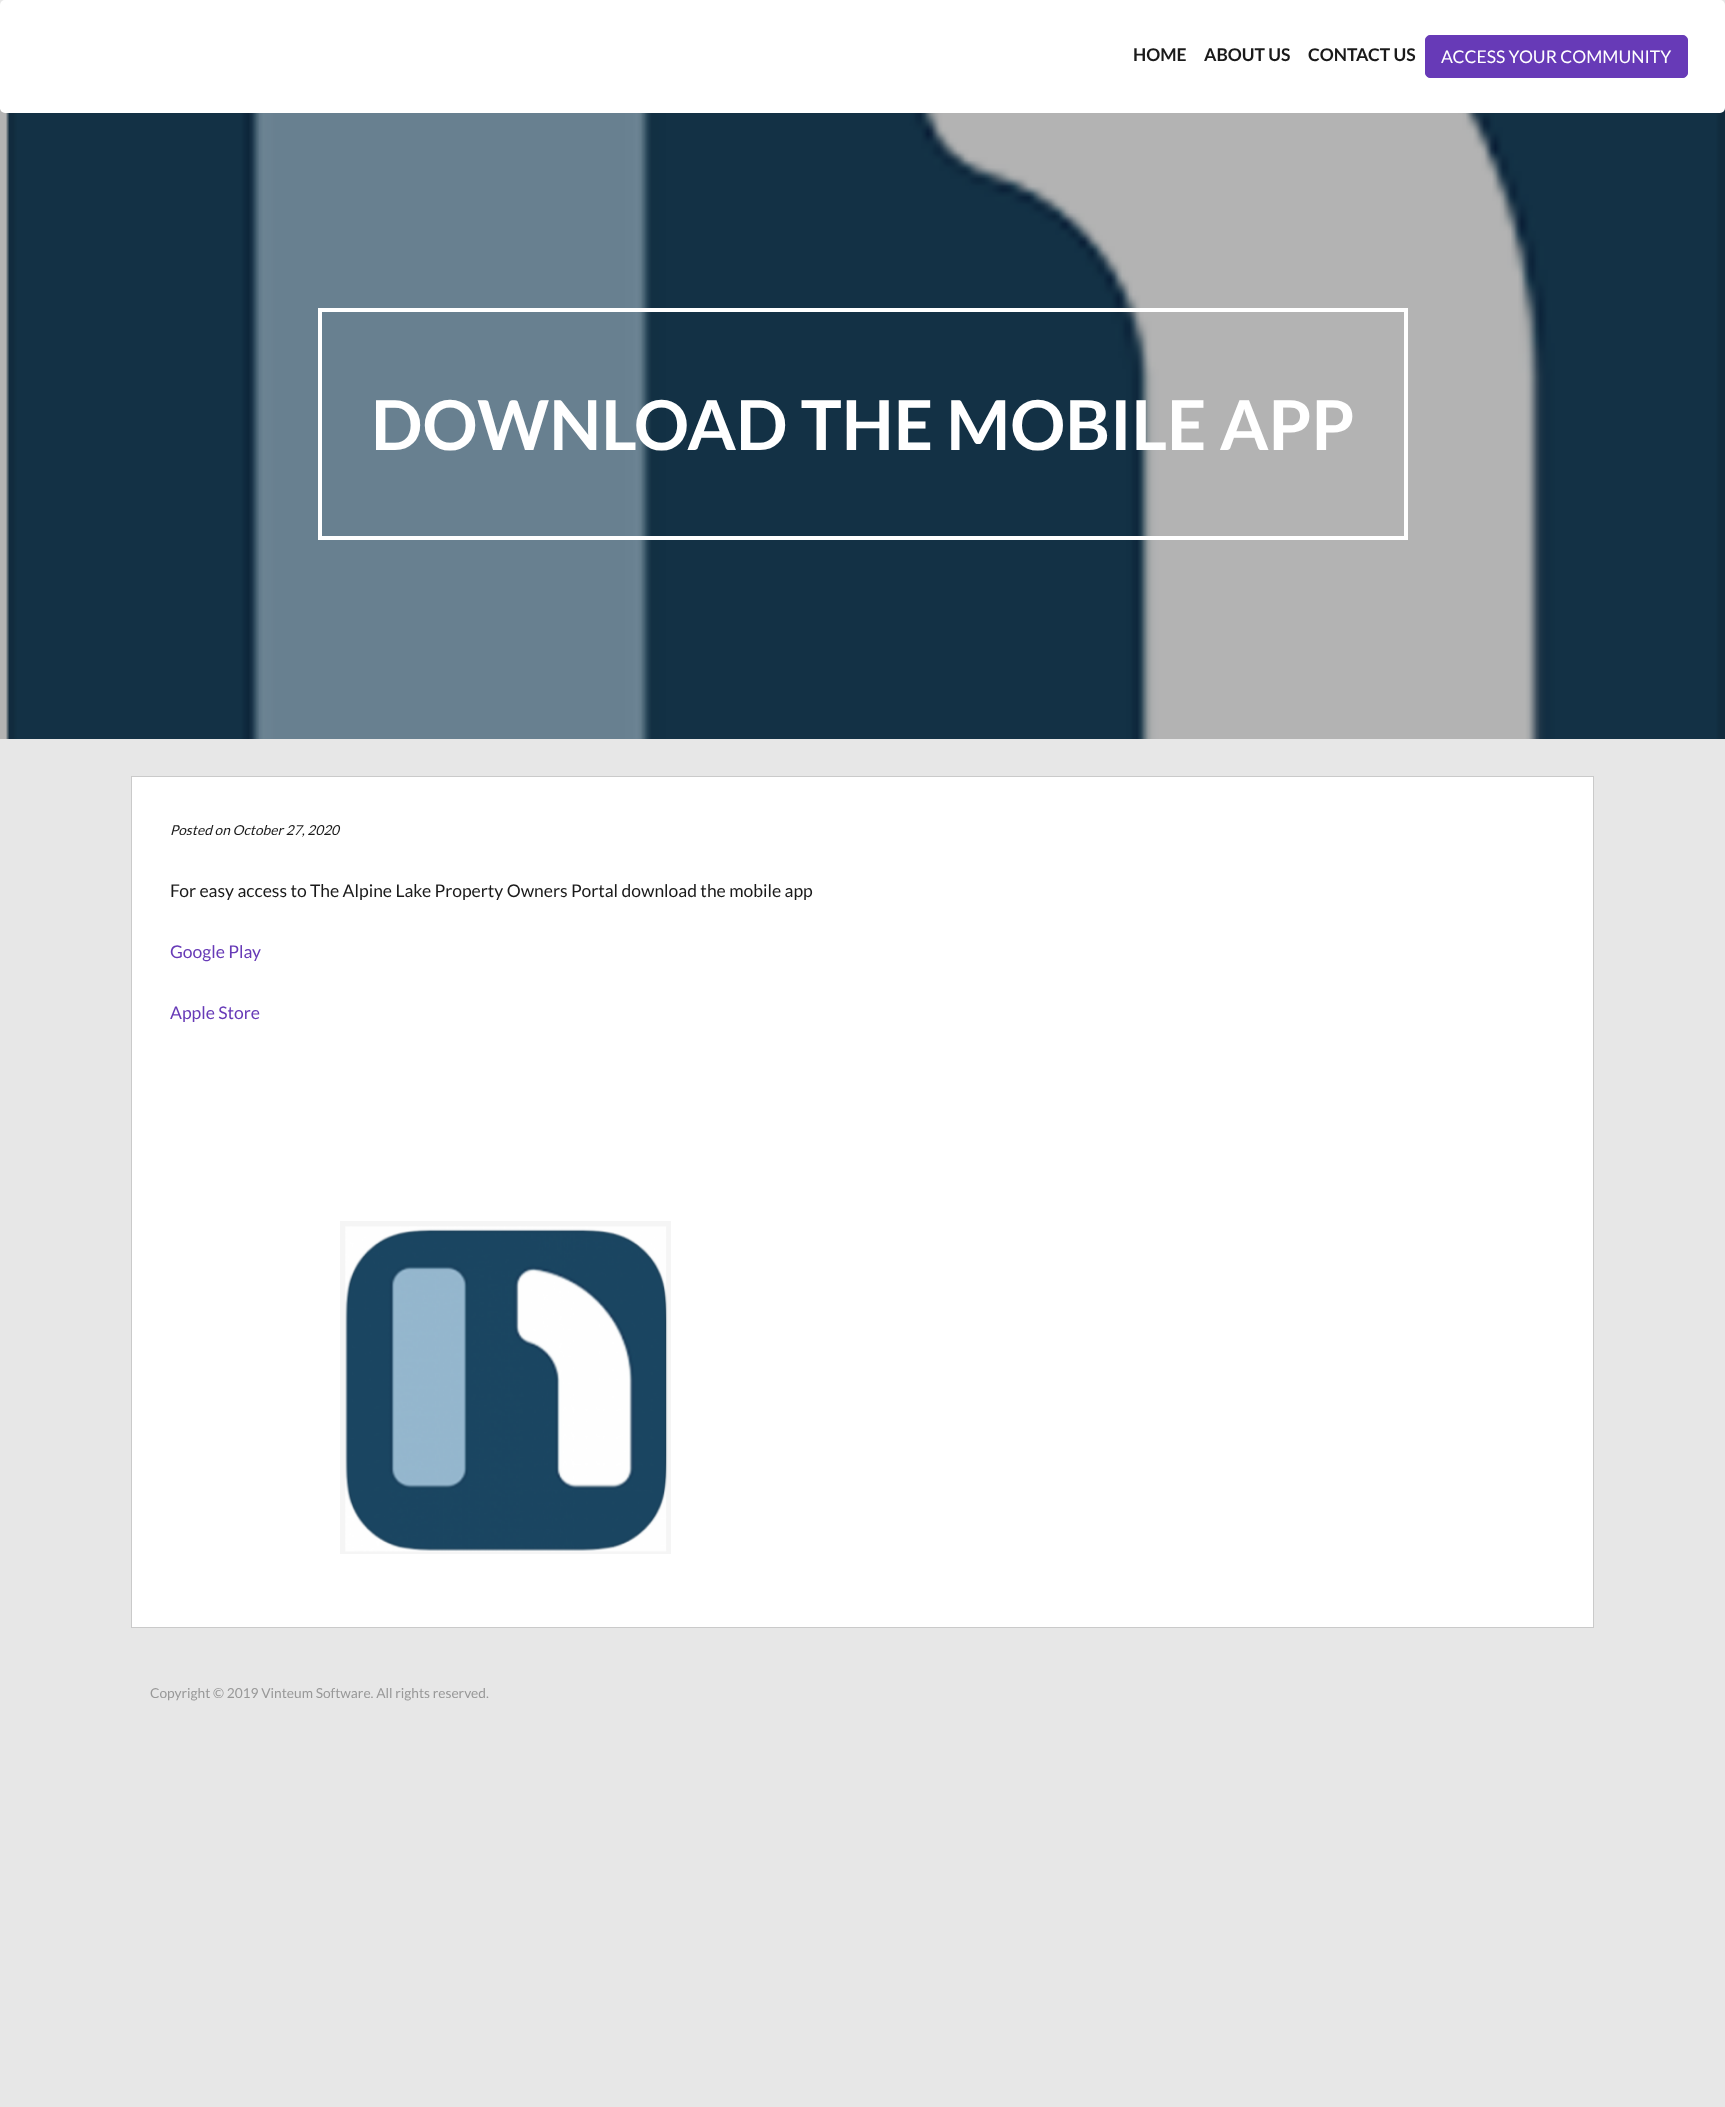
<svg xmlns="http://www.w3.org/2000/svg" width="1725" height="2107" viewBox="0 0 1725 2107">
  <style>
    .t1 { font: bold 17.5px Lato; fill: #1a1a1a; }
    .t2 { font: 17.5px Lato; fill: #fff; }
    .t3 { font: bold 68.75px Lato; fill: #fff; }
    .t4 { font: italic 13.75px Lato; fill: #1a1a1a; }
    .t5 { font: 17.5px Lato; fill: #1a1a1a; }
    .t6 { font: 17.5px Lato; fill: #673ab7; }
    .t7 { font: 13.75px Lato; fill: #989898; }
  </style>
  <rect width="100%" height="100%" fill="#e7e7e7"/>
  <image x="0" y="108" width="1725" height="631" href="images/1.png"/>
  <rect x="0" y="0" width="1725" height="113" rx="5" fill="#fff"/>
  <text x="1133" y="61" class="t1">HOME</text>
  <text x="1204" y="61" class="t1">ABOUT US</text>
  <text x="1308" y="61" class="t1">CONTACT US</text>
  <rect x="1425.5" y="35.5" width="262" height="42" rx="4.5" fill="#673ab7" stroke="#673ab7"/>
  <text x="1441" y="63" class="t2">ACCESS YOUR COMMUNITY</text>
  <rect x="320" y="310" width="1086" height="228" fill="none" stroke="#fff" stroke-width="4"/>
  <text x="371" y="450" class="t3">DOWNLOAD THE MOBILE APP</text>
  <rect x="131.5" y="776.5" width="1462" height="851" fill="#fff" stroke="#cacaca"/>
  <text x="170" y="835" class="t4">Posted on October 27, 2020</text>
  <text x="170" y="897" class="t5">For easy access to The Alpine Lake Property Owners Portal download the mobile app</text>
  <text x="170" y="958" class="t6">Google Play</text>
  <text x="170" y="1019" class="t6">Apple Store</text>
  <rect x="340" y="1221" width="331" height="333" fill="#f5f5f5"/>
  <image x="345" y="1226" width="323" height="326" href="images/2.png"/>
  <text x="150" y="1698" class="t7">Copyright © 2019 Vinteum Software. All rights reserved.</text>
</svg>
